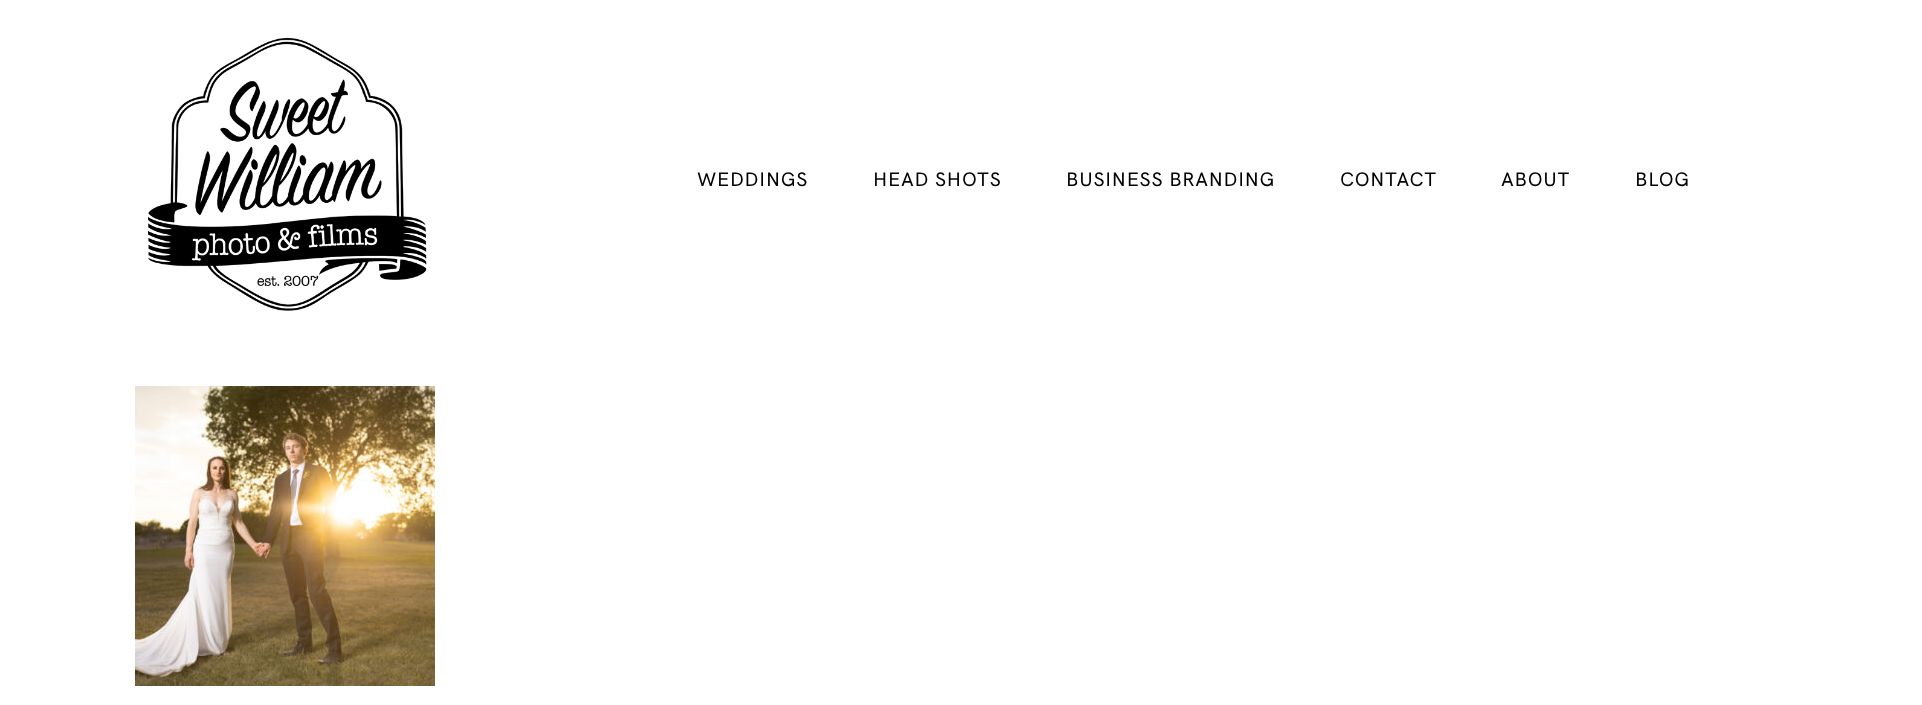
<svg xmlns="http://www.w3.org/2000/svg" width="1922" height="705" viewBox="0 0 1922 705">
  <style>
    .t1 { font: 500 19.5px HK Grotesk; letter-spacing: 0.75px; fill: #000; }
  </style>
  <rect width="100%" height="100%" fill="#fff"/>
  <image x="147" y="37" width="280" height="274" href="images/1.png"/>
  <text x="697" y="186" class="t1">WEDDINGS</text>
  <text x="873" y="186" class="t1">HEAD SHOTS</text>
  <text x="1066" y="186" class="t1">BUSINESS BRANDING</text>
  <text x="1340" y="186" class="t1">CONTACT</text>
  <text x="1501" y="186" class="t1">ABOUT</text>
  <text x="1635" y="186" class="t1">BLOG</text>
  <image x="135" y="386" width="300" height="300" href="images/2.png"/>
</svg>
